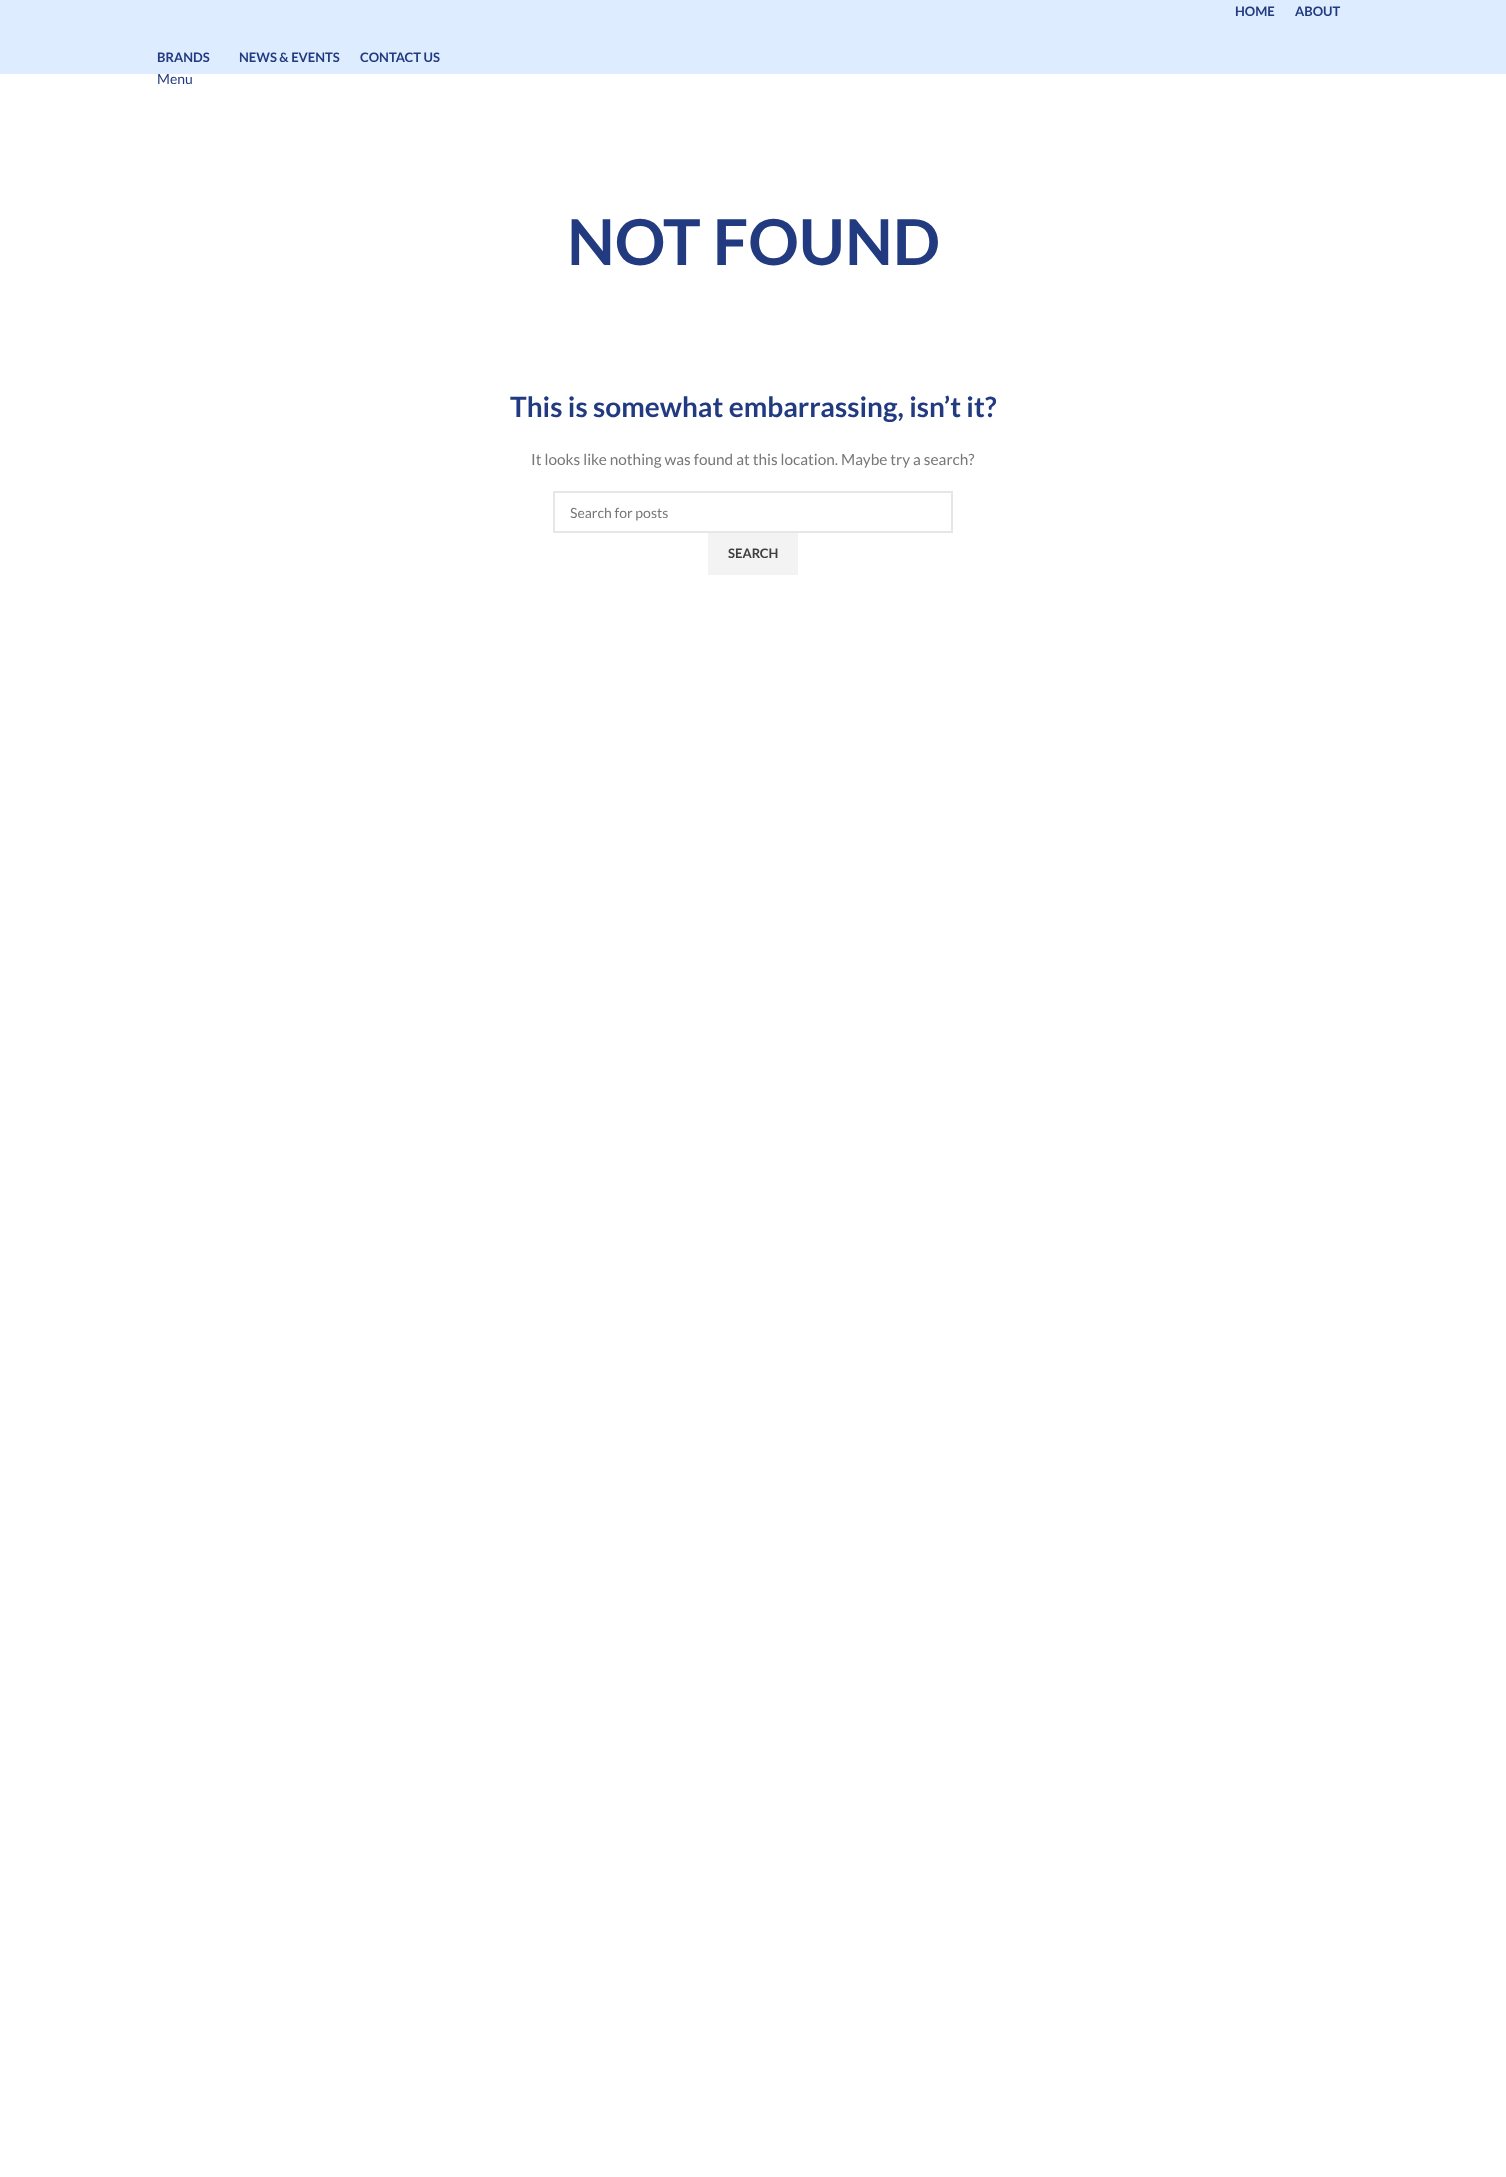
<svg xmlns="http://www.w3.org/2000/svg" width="1506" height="2177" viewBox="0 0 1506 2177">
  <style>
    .t1 { font: bold 13px Lato; fill: #213a80; }
    .t2 { font: 14px Lato; fill: #213a80; }
    .t3 { font: bold 63.25px Lato; fill: #213a80; }
    .t4 { font: bold 28px Lato; fill: #213a80; }
    .t5 { font: 15.4px Lato; fill: #777; }
    .t6 { font: 14px Lato; fill: #777; }
    .t7 { font: bold 13px Lato; fill: #3e3e3e; }
  </style>
  <rect width="100%" height="100%" fill="#fff"/>
  <rect x="0" y="0" width="1506" height="74" fill="#ddecff"/>
  <text x="1235" y="16" class="t1">HOME</text>
  <text x="1295" y="16" class="t1">ABOUT</text>
  <text x="157" y="62" class="t1">BRANDS</text>
  <text x="239" y="62" class="t1">NEWS &amp; EVENTS</text>
  <text x="360" y="62" class="t1">CONTACT US</text>
  <text x="157" y="84" class="t2">Menu</text>
  <text x="567" y="265" class="t3">NOT FOUND</text>
  <text x="510" y="417" class="t4">This is somewhat embarrassing, isn’t it?</text>
  <text x="531" y="465" class="t5">It looks like nothing was found at this location. Maybe try a search?</text>
  <rect x="554" y="492" width="398" height="40" fill="none" stroke="#e6e6e6" stroke-width="2"/>
  <text x="570" y="518" class="t6">Search for posts</text>
  <rect x="708" y="533" width="90" height="42" fill="#f3f3f3"/>
  <text x="728" y="558" class="t7">SEARCH</text>
</svg>
